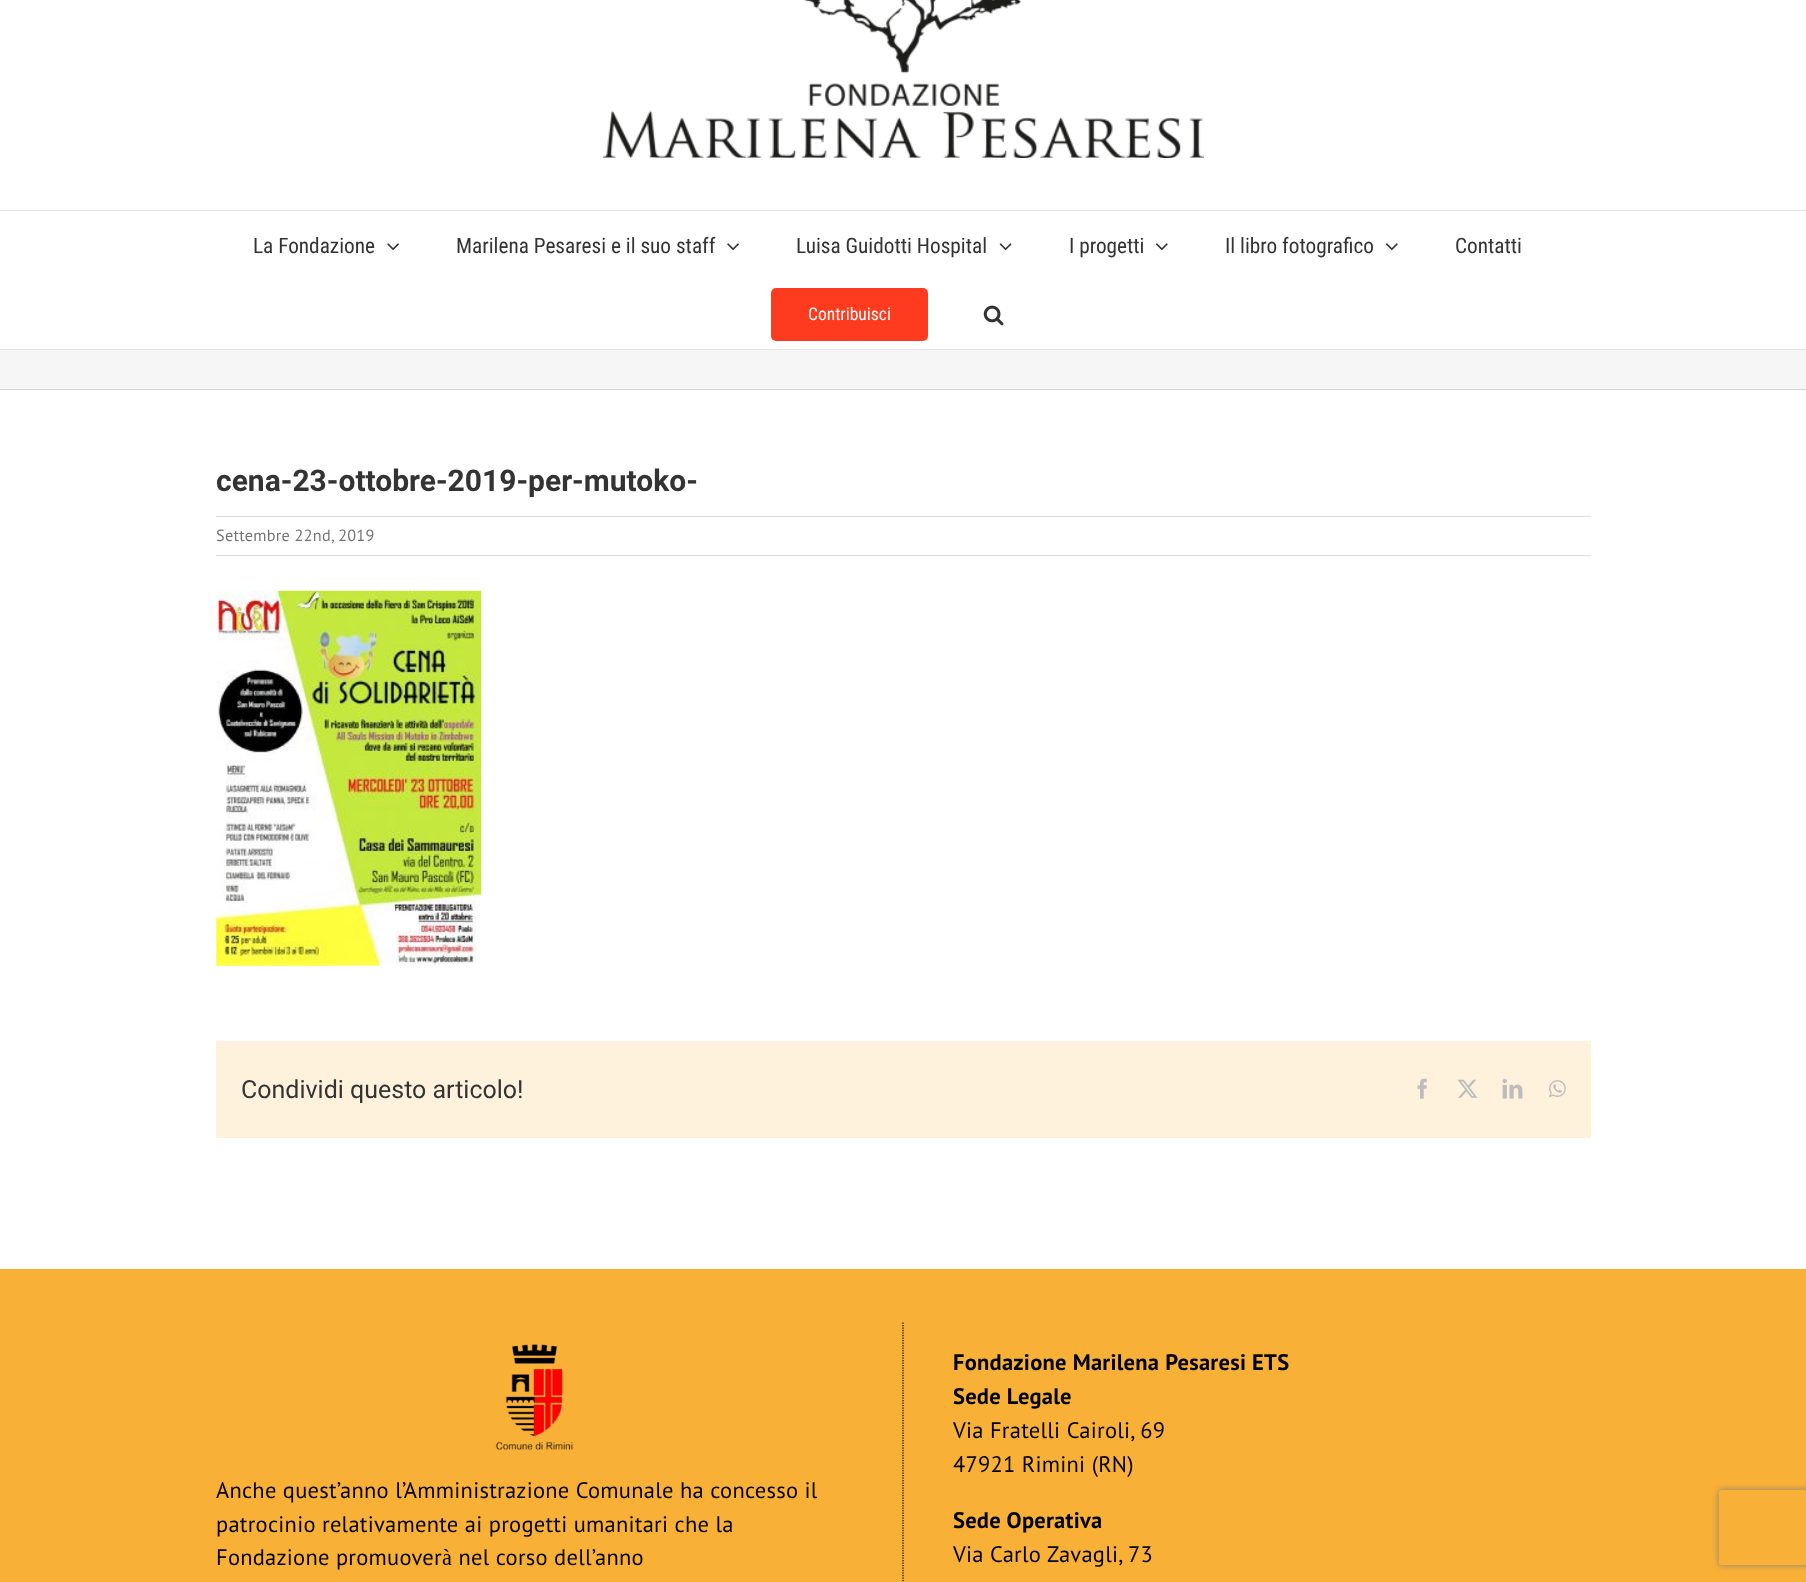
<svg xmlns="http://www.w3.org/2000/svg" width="1806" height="1582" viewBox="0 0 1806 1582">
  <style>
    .t1 { font: 21.25px Roboto Condensed; fill: #333; }
    .t2 { font: 17.5px Roboto Condensed; fill: #fff; }
    .t3 { font: bold 30px Roboto; fill: #333; }
    .t4 { font: 16.25px PT Sans; letter-spacing: 0.25px; fill: #747474; }
    .t5 { font: 25px Roboto; fill: #333; }
    .t6 { font: 22.5px PT Sans; letter-spacing: 0.25px; fill: #000; }
    .t7 { font: bold 22.5px PT Sans; letter-spacing: 0.25px; fill: #000; }
  </style>
  <defs>
    <clipPath id="clip1"><path d="M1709 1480H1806V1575H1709ZM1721.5 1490H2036.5C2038 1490 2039 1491 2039 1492.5V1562.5C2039 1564 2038 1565 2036.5 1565H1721.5C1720 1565 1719 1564 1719 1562.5V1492.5C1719 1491 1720 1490 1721.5 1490Z" clip-rule="evenodd"/></clipPath>
  </defs>
  <rect width="100%" height="100%" fill="#fff"/>
  <rect x="0" y="210" width="1806" height="1" fill="#e5e5e5"/>
  <image x="603" y="0" width="601" height="158" href="images/1.png"/>
  <rect x="0" y="349" width="1806" height="1" fill="#e5e5e5"/>
  <text x="253" y="253" class="t1">La Fondazione</text>
  <image x="387" y="243" width="12" height="8" href="images/2.png"/>
  <text x="456" y="253" class="t1">Marilena Pesaresi e il suo staff</text>
  <image x="727" y="243" width="12" height="8" href="images/2.png"/>
  <text x="796" y="253" class="t1">Luisa Guidotti Hospital</text>
  <image x="999" y="243" width="13" height="8" href="images/3.png"/>
  <text x="1069" y="253" class="t1">I progetti</text>
  <image x="1156" y="243" width="12" height="8" href="images/4.png"/>
  <text x="1225" y="253" class="t1">Il libro fotografico</text>
  <image x="1386" y="243" width="12" height="8" href="images/4.png"/>
  <text x="1455" y="253" class="t1">Contatti</text>
  <rect x="771" y="288" width="157" height="53" rx="5" fill="#ff3b1f"/>
  <text x="808" y="320" class="t2">Contribuisci</text>
  <image x="983" y="305" width="21" height="21" href="images/5.png"/>
  <rect x="0" y="350" width="1806" height="39" fill="#f6f6f6"/>
  <rect x="0" y="389" width="1806" height="1" fill="#d2d3d4"/>
  <text x="216" y="491" class="t3">cena-23-ottobre-2019-per-mutoko-</text>
  <rect x="216" y="516" width="1375" height="1" fill="#e2e2e2"/>
  <rect x="216" y="555" width="1375" height="1" fill="#e2e2e2"/>
  <text x="216" y="541" class="t4">Settembre 22nd, 2019</text>
  <image x="216" y="590" width="266" height="376" href="images/6.png"/>
  <rect x="216" y="1041" width="1375" height="97" fill="#fef2dd"/>
  <text x="241" y="1098" class="t5">Condividi questo articolo!</text>
  <image x="1417" y="1078" width="10" height="21" href="images/7.png"/>
  <image x="1457" y="1079" width="21" height="19" href="images/8.png"/>
  <image x="1502" y="1079" width="21" height="20" href="images/9.png"/>
  <image x="1548" y="1080" width="18" height="18" href="images/10.png"/>
  <rect x="0" y="1269" width="1806" height="313" fill="#f9b036"/>
  <path d="M903 1322.5V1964" fill="none" stroke="#000" stroke-width="1.2" stroke-dasharray="1.25 1.25"/>
  <image x="495" y="1344" width="78" height="106" href="images/11.png"/>
  <text x="216" y="1498" class="t6">Anche quest’anno l’Amministrazione Comunale ha concesso il</text>
  <text x="216" y="1532" class="t6">patrocinio relativamente ai progetti umanitari che la</text>
  <text x="216" y="1565" class="t6">Fondazione promuoverà nel corso dell’anno</text>
  <text x="953" y="1370" class="t7">Fondazione Marilena Pesaresi ETS</text>
  <text x="953" y="1404" class="t7">Sede Legale</text>
  <text x="953" y="1438" class="t6">Via Fratelli Cairoli, 69</text>
  <text x="953" y="1472" class="t6">47921 Rimini (RN)</text>
  <text x="953" y="1528" class="t7">Sede Operativa</text>
  <text x="953" y="1562" class="t6">Via Carlo Zavagli, 73</text>
  <g clip-path="url(#clip1)">
    <rect x="1719" y="1490" width="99" height="75" rx="2.5" fill="#808080" filter="blur(3px)"/>
  </g>
</svg>
